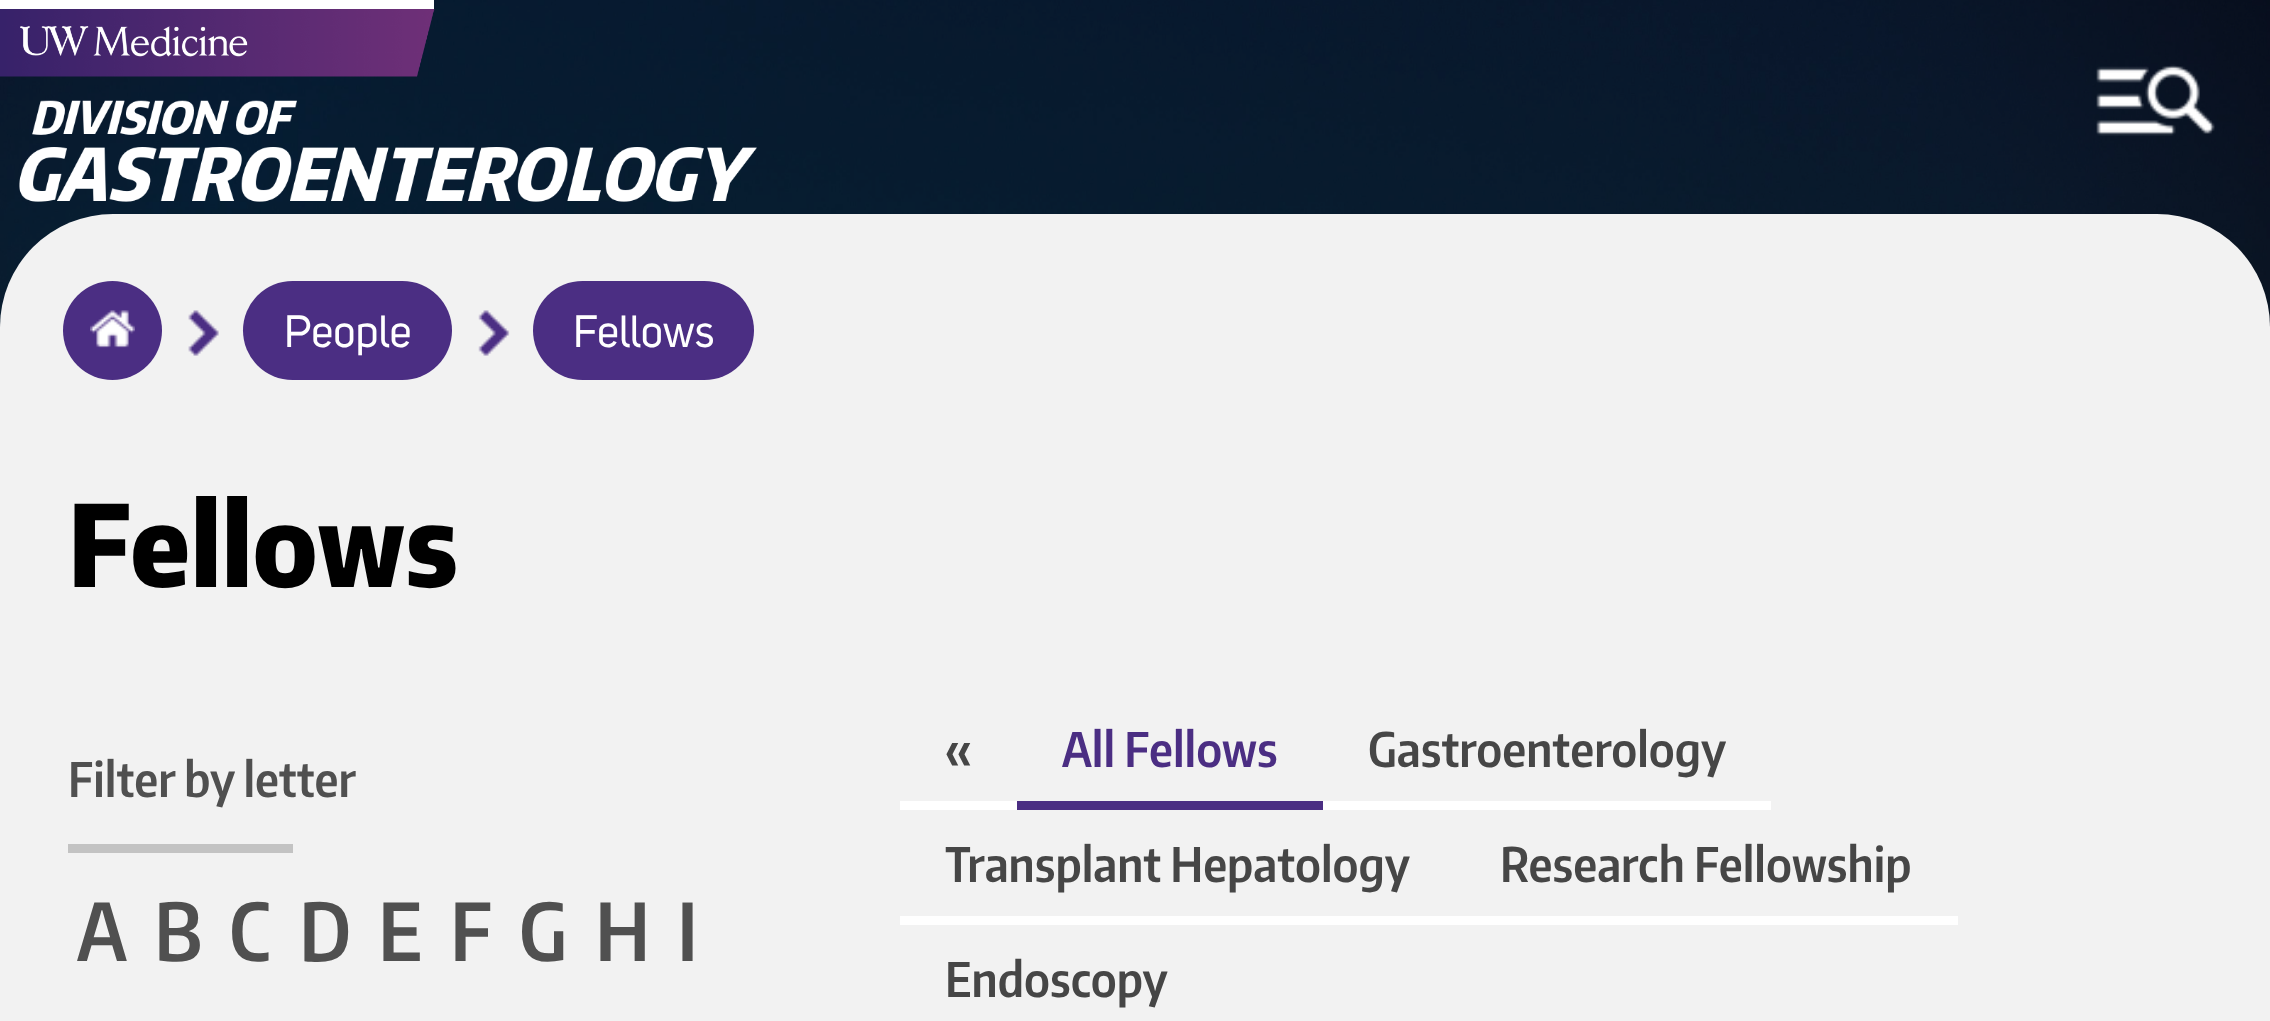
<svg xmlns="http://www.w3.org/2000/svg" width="2270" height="1021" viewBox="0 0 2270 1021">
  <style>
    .t1 { font: 45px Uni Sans; fill: #fff; }
    .t2 { font: 800 112.5px Encode Sans Condensed; fill: #000; }
    .t3 { font: 600 47.25px Encode Sans Condensed; fill: #505050; }
    .t4 { font: 600 79px Encode Sans Condensed; fill: #505050; }
    .t5 { font: 600 47.25px Encode Sans Condensed; fill: #464646; }
    .t6 { font: 600 47.25px Encode Sans Condensed; fill: #4b2e83; }
  </style>
  <rect width="100%" height="100%" fill="#000"/>
  <image x="0" y="0" width="2270" height="327" href="images/2.png"/>
  <image x="2096" y="64" width="119" height="72" href="images/1.png"/>
  <rect x="0" y="0" width="434" height="9" fill="#fff"/>
  <image x="0" y="9" width="435" height="68" href="images/3.png"/>
  <image x="19" y="100" width="738" height="102" href="images/4.png"/>
  <rect x="0" y="214" width="2270" height="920" rx="113" fill="#f2f2f2"/>
  <circle cx="112.5" cy="330.5" r="49.5" fill="#4b2e83"/>
  <image x="90" y="310" width="45" height="38" href="images/5.png"/>
  <image x="188" y="310" width="31" height="46" href="images/6.png"/>
  <rect x="243" y="281" width="209" height="99" rx="49.5" fill="#4b2e83"/>
  <text x="284" y="347" class="t1">People</text>
  <image x="478" y="310" width="32" height="46" href="images/7.png"/>
  <rect x="533" y="281" width="221" height="99" rx="49.5" fill="#4b2e83"/>
  <text x="573" y="347" class="t1">Fellows</text>
  <text x="68" y="587" class="t2">Fellows</text>
  <text x="68" y="797" class="t3">Filter by letter</text>
  <rect x="68" y="844" width="225" height="9" fill="#c3c3c3"/>
  <text x="77" y="961" class="t4">A</text>
  <text x="154" y="961" class="t4">B</text>
  <text x="229" y="961" class="t4">C</text>
  <text x="299" y="961" class="t4">D</text>
  <text x="378" y="961" class="t4">E</text>
  <text x="450" y="961" class="t4">F</text>
  <text x="519" y="961" class="t4">G</text>
  <text x="595" y="961" class="t4">H</text>
  <text x="677" y="961" class="t4">I</text>
  <rect x="900" y="801" width="117" height="9" fill="#fff"/>
  <text x="945" y="767" class="t5">«</text>
  <rect x="1017" y="801" width="306" height="9" fill="#4b2e83"/>
  <text x="1062" y="767" class="t6">All Fellows</text>
  <rect x="1323" y="801" width="448" height="9" fill="#fff"/>
  <text x="1368" y="767" class="t5">Gastroenterology</text>
  <rect x="900" y="916" width="1058" height="9" fill="#fff"/>
  <text x="945" y="882" class="t5">Transplant Hepatology</text>
  <text x="1500" y="882" class="t5">Research Fellowship</text>
  <text x="945" y="997" class="t5">Endoscopy</text>
</svg>
